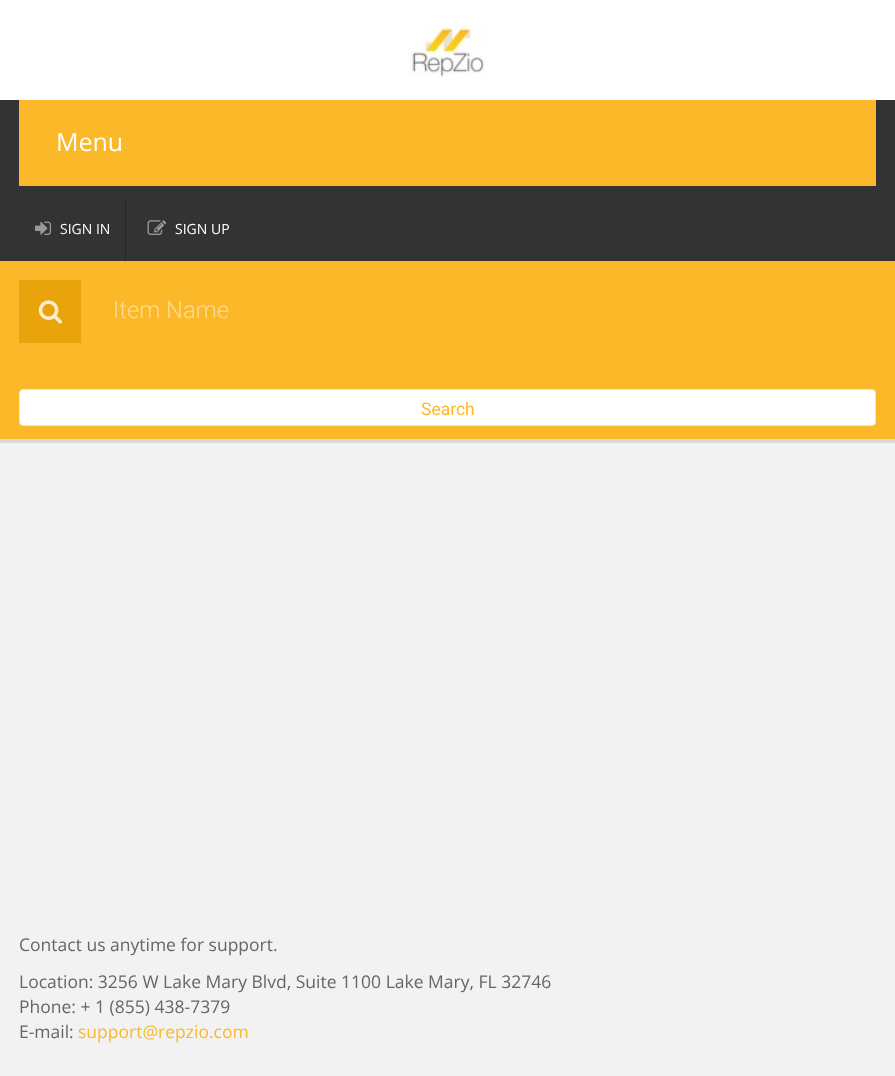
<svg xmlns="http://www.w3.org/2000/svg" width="895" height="1076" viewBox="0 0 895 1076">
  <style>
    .t1 { font: 25px Open Sans; fill: #fff; }
    .t2 { font: 14px Open Sans; fill: #fff; }
    .t3 { font: 300 23.75px Roboto; fill: #fddc94; }
    .t4 { font: 17.5px Roboto; fill: #fbb829; }
    .t5 { font: 17.5px Open Sans; fill: #666; }
    .t6 { font: 17.5px Open Sans; fill: #fbb829; }
  </style>
  <rect width="100%" height="100%" fill="#f2f2f2"/>
  <rect x="0" y="0" width="895" height="100" fill="#fff"/>
  <image x="410" y="25" width="76" height="53" href="images/1.png"/>
  <rect x="0" y="100" width="895" height="161" fill="#333"/>
  <rect x="19" y="100" width="857" height="86" fill="#fbb829"/>
  <text x="56" y="151" class="t1">Menu</text>
  <rect x="125" y="199" width="1" height="62" fill="#242424"/>
  <image x="35" y="221" width="17" height="14" href="images/2.png"/>
  <text x="60" y="234" class="t2">SIGN IN</text>
  <image x="147" y="220" width="20" height="15" href="images/3.png"/>
  <text x="175" y="234" class="t2">SIGN UP</text>
  <rect x="0" y="265" width="895" height="178" fill="#0000001a" filter="blur(0.5px)"/>
  <rect x="0" y="261" width="895" height="178" fill="#fbb829"/>
  <rect x="19" y="280" width="62" height="63" fill="#e9a30b"/>
  <image x="38" y="300" width="24" height="24" href="images/4.png"/>
  <text x="113" y="318" class="t3">Item Name</text>
  <rect x="19.5" y="389.5" width="856" height="36" rx="3.5" fill="#fff" stroke="#e6e6e6"/>
  <text x="421" y="415" class="t4">Search</text>
  <text x="19" y="951" class="t5">Contact us anytime for support.</text>
  <text x="19" y="988" class="t5">Location: 3256 W Lake Mary Blvd, Suite 1100 Lake Mary, FL 32746</text>
  <text x="19" y="1013" class="t5">Phone: + 1 (855) 438-7379</text>
  <text x="19" y="1038" class="t5">E-mail:</text>
  <text x="78" y="1038" class="t6">support@repzio.com</text>
</svg>
